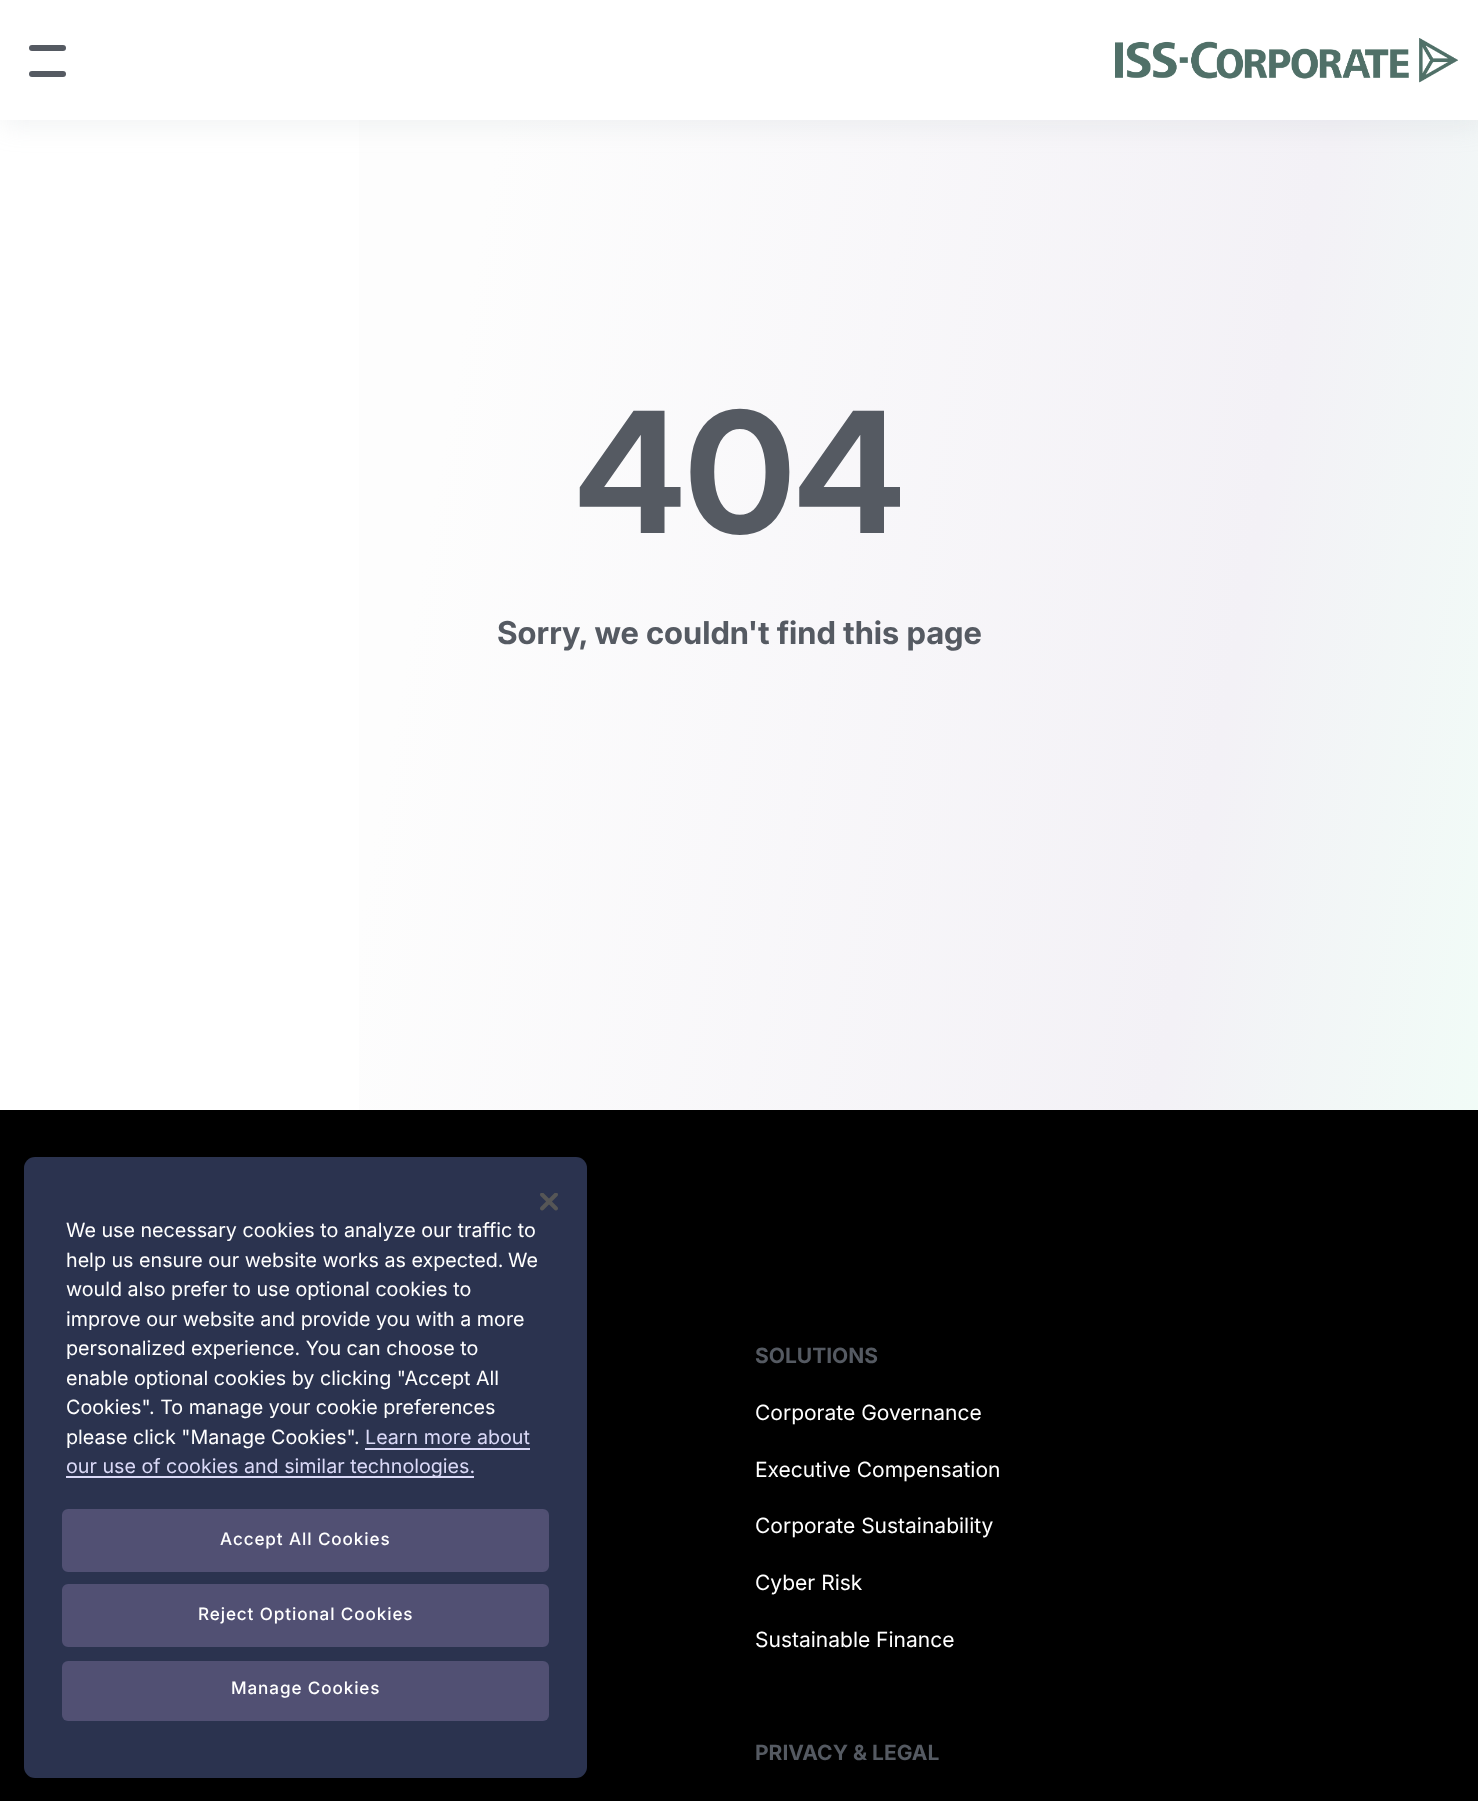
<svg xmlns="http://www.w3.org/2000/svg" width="1478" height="1801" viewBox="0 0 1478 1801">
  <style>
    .t1 { font: bold 168px Inter; fill: #555a62; }
    .t2 { font: bold 31.5px 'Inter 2'; fill: #555a62; }
    .t3 { font: 19.7px Inter; fill: #fff; }
    .t4 { font: 19.7px Inter; fill: #dad9f7; }
    .t5 { font: 500 17.1px Inter; letter-spacing: 0.9px; fill: #fff; }
    .t6 { font: bold 21px 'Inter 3'; fill: #555a62; }
    .t7 { font: 21px Inter; fill: #fff; }
  </style>
  <defs>
    <linearGradient id="g1" gradientUnits="userSpaceOnUse" x1="-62" y1="474" x2="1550" y2="758"><stop offset="0.3" stop-color="#fdfdfd"/><stop offset="0.8" stop-color="#f3f1f6"/><stop offset="1" stop-color="#f1fcf7"/></linearGradient>
  </defs>
  <rect width="100%" height="100%" fill="#fff"/>
  <rect x="359" y="120" width="1119" height="990" fill="url(#g1)"/>
  <rect x="2" y="5" width="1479" height="120" fill="#b6bec333" filter="blur(13.5px)"/>
  <rect x="0" y="0" width="1478" height="120" fill="#fff"/>
  <rect x="29" y="45" width="37" height="6" rx="3" fill="#555a62"/>
  <rect x="29" y="71" width="37" height="6" rx="3" fill="#555a62"/>
  <image x="1115" y="38" width="343" height="45" href="images/1.png"/>
  <text x="575" y="533" class="t1">404</text>
  <text x="497" y="644" class="t2">Sorry, we couldn't find this page</text>
  <rect x="0" y="1110" width="1478" height="691" fill="#000"/>
  <rect x="24" y="1157" width="563" height="621" rx="11" fill="#2b334f"/>
  <image x="540" y="1193" width="18" height="18" href="images/2.png"/>
  <text x="66" y="1237" class="t3">We use necessary cookies to analyze our traffic to</text>
  <text x="66" y="1267" class="t3">help us ensure our website works as expected.</text>
  <text x="508" y="1267" class="t3">We</text>
  <text x="66" y="1296" class="t3">would also prefer to use optional cookies to</text>
  <text x="66" y="1326" class="t3">improve our website and provide you with a more</text>
  <text x="66" y="1355" class="t3">personalized experience. You can choose to</text>
  <text x="66" y="1385" class="t3">enable optional cookies by clicking "Accept All</text>
  <text x="66" y="1414" class="t3">Cookies". To manage your cookie preferences</text>
  <text x="66" y="1444" class="t3">please click "Manage Cookies".</text>
  <text x="365" y="1444" class="t4">Learn more about</text>
  <rect x="365" y="1448" width="165" height="2" fill="#dad9f7"/>
  <rect x="66" y="1476" width="408" height="2" fill="#dad9f7"/>
  <text x="66" y="1473" class="t4">our use of cookies and similar technologies.</text>
  <rect x="63" y="1510" width="485" height="61" rx="5" fill="#515073" stroke="#515073" stroke-width="2"/>
  <text x="220" y="1545" class="t5">Accept All Cookies</text>
  <rect x="63" y="1585" width="485" height="61" rx="5" fill="#515073" stroke="#515073" stroke-width="2"/>
  <text x="198" y="1620" class="t5">Reject Optional Cookies</text>
  <rect x="62" y="1661" width="487" height="60" rx="6" fill="#515073"/>
  <text x="231" y="1694" class="t5">Manage Cookies</text>
  <text x="755" y="1363" class="t6">SOLUTIONS</text>
  <text x="755" y="1420" class="t7">Corporate Governance</text>
  <text x="755" y="1477" class="t7">Executive Compensation</text>
  <text x="755" y="1533" class="t7">Corporate Sustainability</text>
  <text x="755" y="1590" class="t7">Cyber Risk</text>
  <text x="755" y="1647" class="t7">Sustainable Finance</text>
  <text x="755" y="1760" class="t6">PRIVACY &amp; LEGAL</text>
</svg>
